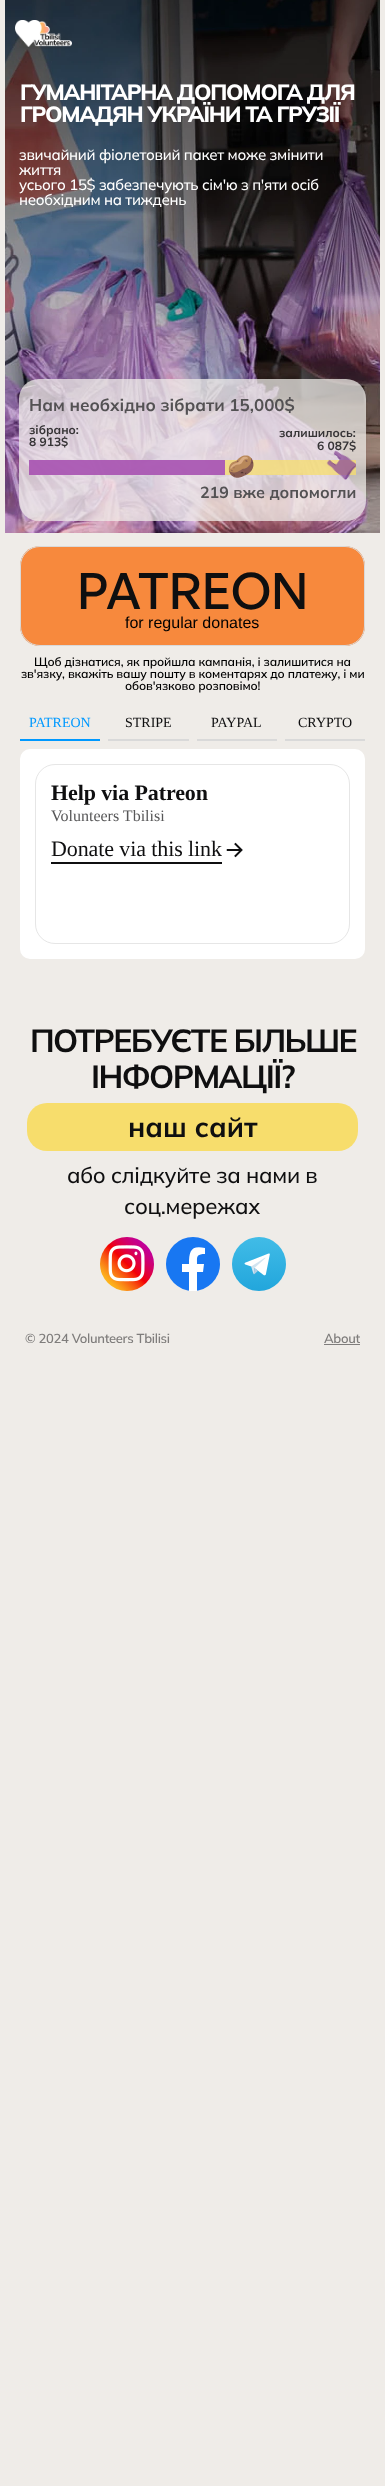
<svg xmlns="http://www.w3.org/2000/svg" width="385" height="2486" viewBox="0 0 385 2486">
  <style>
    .t1 { font: 800 22px Mulish; letter-spacing: -1.2px; fill: #fff; }
    .t2 { font: 500 15px Mulish; letter-spacing: -0.3px; fill: #fff; }
    .t3 { font: bold 17px Mulish; fill: #535153; }
    .t4 { font: bold 12px Mulish; fill: #363436; }
    .t5 { font: bold 22px Noto Color Emoji; fill: #8a8374; }
    .t6 { font: bold 16px Mulish; fill: #535153; }
    .t7 { font: 500 50px General Sans; fill: #0f0f10; }
    .t8 { font: 16px Liberation Sans; fill: #000; }
    .t9 { font: 600 12px Mulish; letter-spacing: -0.12px; fill: #000; }
    .t10 { font: 14px Liberation Serif; fill: #09f; }
    .t11 { font: 14px Liberation Serif; fill: #0f0f10; }
    .t12 { font: bold 22px Liberation Serif; letter-spacing: -0.1px; fill: #0f0f10; }
    .t13 { font: 16px Liberation Serif; fill: #575758; }
    .t14 { font: 22px Liberation Serif; letter-spacing: -0.1px; fill: #0f0f10; }
    .t15 { font: bold 32px Mulish; letter-spacing: -1.6px; fill: #0f0f10; }
    .t16 { font: bold 28px Mulish; fill: #0f0f10; }
    .t17 { font: 500 22px Mulish; letter-spacing: -0.3px; fill: #0f0f10; }
    .t18 { font: 600 13px Mulish; letter-spacing: -0.3px; fill: #7f7d7c; }
  </style>
  <defs>
    <linearGradient id="g1" gradientUnits="userSpaceOnUse" x1="100" y1="1291" x2="154" y2="1237"><stop offset="0" stop-color="#ffd521"/><stop offset="0.06" stop-color="#ffd020"/><stop offset="0.12" stop-color="#fec01e"/><stop offset="0.2" stop-color="#fca71b"/><stop offset="0.28" stop-color="#fa8316"/><stop offset="0.37" stop-color="#f85510"/><stop offset="0.46" stop-color="#f51e09"/><stop offset="0.5" stop-color="#f30005"/><stop offset="0.5" stop-color="#f20007"/><stop offset="0.6" stop-color="#e1003b"/><stop offset="0.69" stop-color="#d30067"/><stop offset="0.78" stop-color="#c70088"/><stop offset="0.86" stop-color="#bf00a0"/><stop offset="0.94" stop-color="#bb00af"/><stop offset="1" stop-color="#b900b4"/></linearGradient>
    <linearGradient id="g2" gradientUnits="userSpaceOnUse" x1="259" y1="1237" x2="259" y2="1291"><stop offset="0" stop-color="#41bce7"/><stop offset="1" stop-color="#22a6dc"/></linearGradient>
  </defs>
  <rect width="100%" height="100%" fill="#efece8"/>
  <image x="5" y="0" width="375" height="533" href="images/1.png"/>
  <image x="15" y="20" width="57" height="29" href="images/2.png"/>
  <text x="20" y="100" class="t1">ГУМАНIТАРНА ДОПОМОГА ДЛЯ</text>
  <text x="20" y="122" class="t1">ГРОМАДЯН УКРАÏНИ ТА ГРУЗIÏ</text>
  <text x="19" y="160" class="t2">звичайний фіолетовий пакет може змінити</text>
  <text x="19" y="175" class="t2">життя</text>
  <text x="19" y="190" class="t2">усього 15$ забезпечують сім'ю з п'яти осіб</text>
  <text x="19" y="205" class="t2">необхідним на тиждень</text>
  <rect x="19" y="379" width="347" height="142" rx="20" fill="#efece8bf"/>
  <text x="29" y="411" class="t3">Нам необхідно зібрати 15,000$</text>
  <text x="29" y="434" class="t4">зібрано:</text>
  <text x="29" y="446" class="t4">8 913$</text>
  <text x="279" y="437" class="t4">залишилось:</text>
  <text x="317" y="450" class="t4">6 087$</text>
  <rect x="29" y="460" width="327" height="15" fill="#f7dd6cbf"/>
  <text x="227" y="473" transform="rotate(4 227 473)" class="t5">🥔</text>
  <image x="326" y="450" width="30" height="30" href="images/3.png"/>
  <rect x="29" y="460" width="196" height="15" fill="#9534c4bf"/>
  <text x="200" y="498" class="t6">219 вже допомогли</text>
  <rect x="20" y="546" width="345" height="100" rx="20" fill="#f7893d"/>
  <rect x="20.5" y="546.5" width="344" height="99" rx="19.5" fill="none" stroke="#d9d9d9"/>
  <text x="77" y="609" class="t7">PATREON</text>
  <text x="125" y="628" class="t8">for regular donates</text>
  <text x="34" y="666" class="t9">Щоб дізнатися, як пройшла кампанія, і залишитися на</text>
  <text x="21" y="678" class="t9">зв'язку, вкажіть вашу пошту в коментарях до платежу, і ми</text>
  <text x="125" y="690" class="t9">обов'язково розповімо!</text>
  <rect x="20" y="739" width="80" height="2" fill="#09f"/>
  <text x="29" y="727" class="t10">PATREON</text>
  <rect x="108" y="739" width="81" height="2" fill="#d9d9d9"/>
  <text x="125" y="727" class="t11">STRIPE</text>
  <rect x="197" y="739" width="80" height="2" fill="#d9d9d9"/>
  <text x="211" y="727" class="t11">PAYPAL</text>
  <rect x="285" y="739" width="80" height="2" fill="#d9d9d9"/>
  <text x="298" y="727" class="t11">CRYPTO</text>
  <rect x="20" y="749" width="345" height="210" rx="10" fill="#fff"/>
  <rect x="35.5" y="764.5" width="314" height="179" rx="19.5" fill="none" stroke="#e6e6e6"/>
  <text x="51" y="800" class="t12">Help via Patreon</text>
  <text x="51" y="821" class="t13">Volunteers Tbilisi</text>
  <rect x="51" y="862" width="171" height="2" fill="#0f0f10"/>
  <text x="51" y="856" class="t14">Donate via this link</text>
  <image x="226" y="842" width="17" height="16" href="images/4.png"/>
  <text x="30" y="1052" class="t15">ПОТРЕБУЄТЕ БIЛЬШЕ</text>
  <text x="91" y="1088" class="t15">ІНФОРМАЦІЇ?</text>
  <rect x="27" y="1103" width="331" height="48" rx="20" fill="#f7dd6c"/>
  <text x="128" y="1137" class="t16">наш сайт</text>
  <text x="67" y="1183" class="t17">або cлідкуйте за нами в</text>
  <text x="124" y="1214" class="t17">соц.мережах</text>
  <circle cx="127" cy="1264" r="27" fill="url(#g1)"/>
  <image x="108" y="1245" width="37" height="37" href="images/5.png"/>
  <image x="117" y="1254" width="19" height="19" href="images/7.png"/>
  <image x="134" y="1251" width="4" height="5" href="images/6.png"/>
  <circle cx="193" cy="1264" r="27" fill="#1877f2"/>
  <path d="M203 1272H197V1291H189V1272H182V1264H189C189 1251 191 1245 205 1248V1254C196 1254 197 1257 197 1264H204Z" fill="#fff"/>
  <circle cx="259" cy="1264" r="27" fill="url(#g2)"/>
  <image x="244" y="1253" width="26" height="23" href="images/8.png"/>
  <text x="25" y="1343" class="t18">© 2024 Volunteers Tbilisi</text>
  <text x="324" y="1343" class="t18">About</text>
  <rect x="324" y="1344" width="36" height="1" fill="#7f7d7c"/>
</svg>
